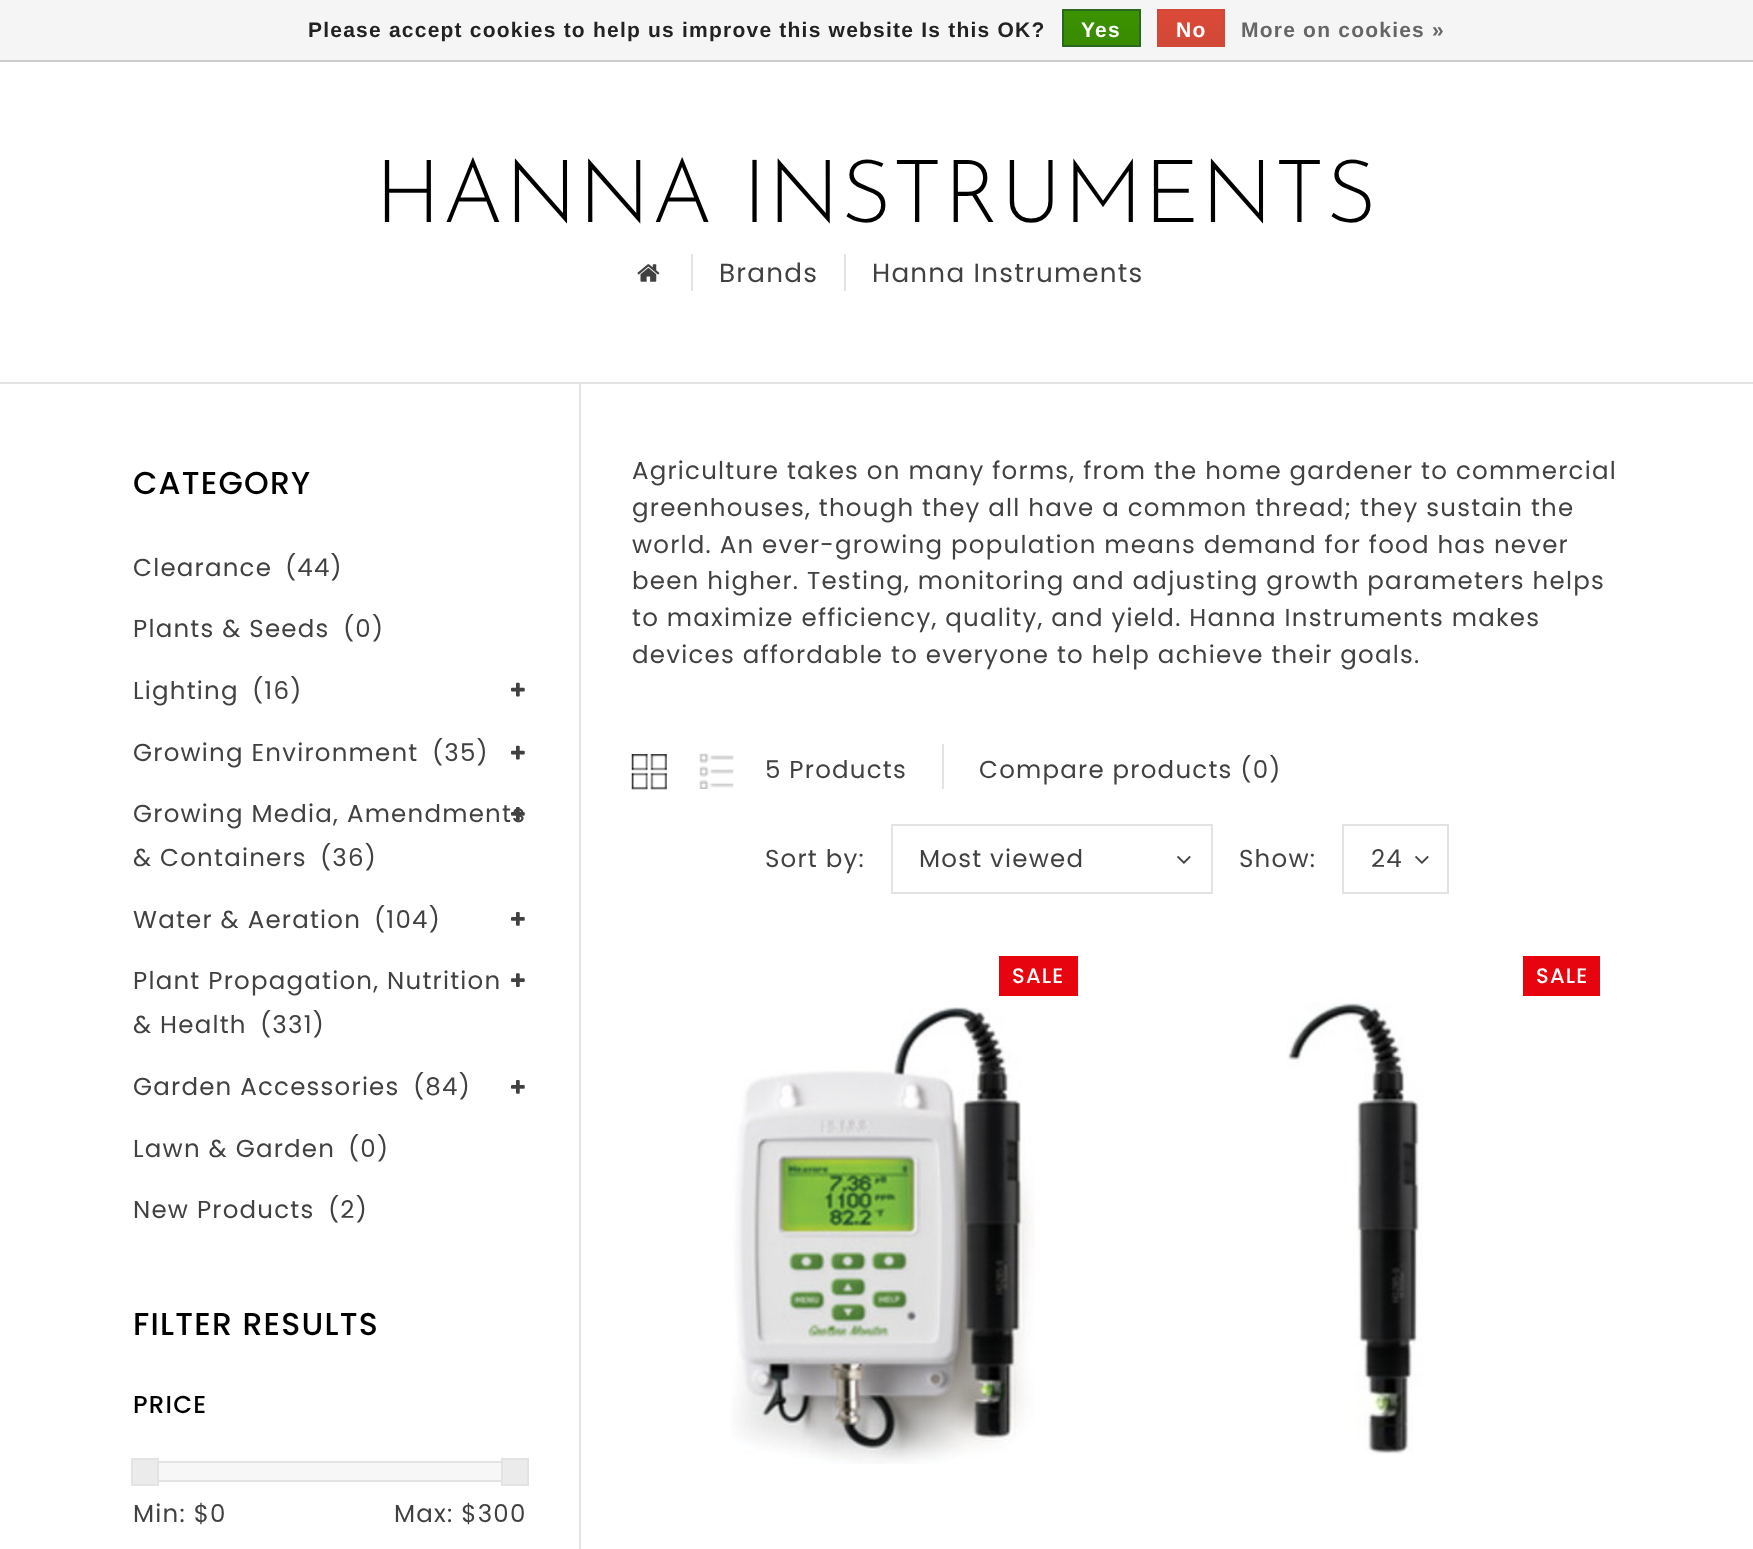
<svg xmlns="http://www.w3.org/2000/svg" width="1753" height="1549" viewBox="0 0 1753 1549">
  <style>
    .t1 { font: bold 21px Liberation Sans; letter-spacing: 1.22px; fill: #222; }
    .t2 { font: bold 21px Liberation Sans; letter-spacing: 1.22px; fill: #fff; }
    .t3 { font: bold 21px Liberation Sans; letter-spacing: 1.22px; fill: #666; }
    .t4 { font: 300 87.5px Josefin Sans; letter-spacing: 1.22px; fill: #000; }
    .t5 { font: 26.25px Poppins; letter-spacing: 1.22px; fill: #414141; }
    .t6 { font: 500 31.5px Poppins; letter-spacing: 1.22px; fill: #000; }
    .t7 { font: 24.5px Poppins; letter-spacing: 1.22px; fill: #414141; }
    .t8 { font: 500 24.5px Poppins; letter-spacing: 1.22px; fill: #000; }
    .t9 { font: 500 21px Poppins; letter-spacing: 1.22px; fill: #fff; }
  </style>
  <defs>
    <linearGradient id="g1" gradientUnits="userSpaceOnUse" x1="1102" y1="10" x2="1102" y2="46"><stop offset="0" stop-color="#3c9300"/><stop offset="1" stop-color="#398a00"/></linearGradient>
    <linearGradient id="g2" gradientUnits="userSpaceOnUse" x1="1191" y1="10" x2="1191" y2="46"><stop offset="0" stop-color="#dc4a38"/><stop offset="1" stop-color="#d14836"/></linearGradient>
  </defs>
  <rect width="100%" height="100%" fill="#fff"/>
  <rect x="0" y="0" width="1753" height="60" fill="#f5f5f5"/>
  <rect x="0" y="60" width="1753" height="2" fill="#ccc"/>
  <text x="308" y="37" class="t1">Please accept cookies to help us improve this website Is this OK?</text>
  <rect x="1064" y="11" width="75" height="34" fill="url(#g1)"/>
  <rect x="1063" y="10" width="77" height="36" fill="none" stroke="#29691d" stroke-width="2"/>
  <text x="1081" y="37" class="t2">Yes</text>
  <rect x="1159" y="11" width="64" height="34" fill="url(#g2)"/>
  <rect x="1158" y="10" width="66" height="36" fill="none" stroke="#d14836" stroke-width="2"/>
  <text x="1176" y="37" class="t2">No</text>
  <text x="1241" y="37" class="t3">More on cookies »</text>
  <rect x="0" y="382" width="1753" height="2" fill="#e3e3e3"/>
  <text x="375" y="222" class="t4">HANNA INSTRUMENTS</text>
  <image x="637" y="264" width="23" height="18" href="images/1.png"/>
  <text x="719" y="282" class="t5">Brands</text>
  <rect x="691" y="254" width="2" height="37" fill="#e3e3e3"/>
  <text x="872" y="282" class="t5">Hanna Instruments</text>
  <rect x="844" y="254" width="2" height="37" fill="#e3e3e3"/>
  <text x="133" y="494" class="t6">CATEGORY</text>
  <text x="133" y="576" class="t7">Clearance</text>
  <text x="285" y="576" class="t7">(44)</text>
  <text x="133" y="637" class="t7">Plants &amp; Seeds</text>
  <text x="343" y="637" class="t7">(0)</text>
  <text x="133" y="699" class="t7">Lighting</text>
  <text x="252" y="699" class="t7">(16)</text>
  <image x="511" y="682" width="14" height="15" href="images/2.png"/>
  <text x="133" y="761" class="t7">Growing Environment</text>
  <text x="432" y="761" class="t7">(35)</text>
  <image x="511" y="745" width="14" height="15" href="images/2.png"/>
  <text x="133" y="822" class="t7">Growing Media, Amendments</text>
  <image x="511" y="807" width="14" height="14" href="images/3.png"/>
  <text x="133" y="866" class="t7">&amp; Containers</text>
  <text x="320" y="866" class="t7">(36)</text>
  <text x="133" y="928" class="t7">Water &amp; Aeration</text>
  <text x="374" y="928" class="t7">(104)</text>
  <image x="511" y="912" width="14" height="14" href="images/4.png"/>
  <text x="133" y="989" class="t7">Plant Propagation, Nutrition</text>
  <image x="511" y="973" width="14" height="14" href="images/5.png"/>
  <text x="133" y="1033" class="t7">&amp; Health</text>
  <text x="260" y="1033" class="t7">(331)</text>
  <text x="133" y="1095" class="t7">Garden Accessories</text>
  <text x="413" y="1095" class="t7">(84)</text>
  <image x="511" y="1080" width="14" height="14" href="images/4.png"/>
  <text x="133" y="1157" class="t7">Lawn &amp; Garden</text>
  <text x="348" y="1157" class="t7">(0)</text>
  <text x="133" y="1218" class="t7">New Products</text>
  <text x="328" y="1218" class="t7">(2)</text>
  <text x="133" y="1335" class="t6">FILTER RESULTS</text>
  <text x="133" y="1413" class="t8">PRICE</text>
  <rect x="159" y="1463" width="342" height="17" fill="#f7f7f7"/>
  <rect x="148" y="1462" width="367" height="19" fill="none" stroke="#e3e3e3" stroke-width="2"/>
  <rect x="132" y="1459" width="26" height="26" fill="#ebebeb" stroke="#e3e3e3" stroke-width="2"/>
  <rect x="502" y="1459" width="26" height="26" fill="#ebebeb" stroke="#e3e3e3" stroke-width="2"/>
  <text x="133" y="1522" class="t7">Min: $0</text>
  <text x="394" y="1522" class="t7">Max: $300</text>
  <rect x="579" y="383" width="2" height="1166" fill="#e3e3e3"/>
  <text x="632" y="479" class="t7">Agriculture takes on many forms, from the home gardener to commercial</text>
  <text x="632" y="516" class="t7">greenhouses, though they all have a common thread; they sustain the</text>
  <text x="632" y="553" class="t7">world. An ever-growing population means demand for food has never</text>
  <text x="632" y="589" class="t7">been higher. Testing, monitoring and adjusting growth parameters helps</text>
  <text x="632" y="626" class="t7">to maximize efficiency, quality, and yield. Hanna Instruments makes</text>
  <text x="632" y="663" class="t7">devices affordable to everyone to help achieve their goals.</text>
  <image x="631" y="754" width="36" height="36" href="images/6.png"/>
  <image x="699" y="753" width="35" height="36" href="images/7.png"/>
  <text x="765" y="778" class="t7">5 Products</text>
  <rect x="942" y="744" width="2" height="45" fill="#e3e3e3"/>
  <text x="979" y="778" class="t7">Compare products (0)</text>
  <text x="765" y="867" class="t7">Sort by:</text>
  <rect x="892" y="825" width="320" height="68" fill="none" stroke="#e3e3e3" stroke-width="2"/>
  <text x="919" y="867" class="t7">Most viewed</text>
  <image x="1177" y="856" width="14" height="8" href="images/8.png"/>
  <text x="1239" y="867" class="t7">Show:</text>
  <rect x="1343" y="825" width="105" height="68" fill="none" stroke="#e3e3e3" stroke-width="2"/>
  <text x="1371" y="867" class="t7">24</text>
  <image x="1415" y="856" width="14" height="8" href="images/8.png"/>
  <rect x="999" y="956" width="79" height="40" fill="#e7040f"/>
  <text x="1012" y="983" class="t9">SALE</text>
  <image x="731" y="1007" width="304" height="457" href="images/9.png"/>
  <rect x="1523" y="956" width="77" height="40" fill="#e7040f"/>
  <text x="1536" y="983" class="t9">SALE</text>
  <image x="1287" y="999" width="136" height="455" href="images/10.png"/>
</svg>
